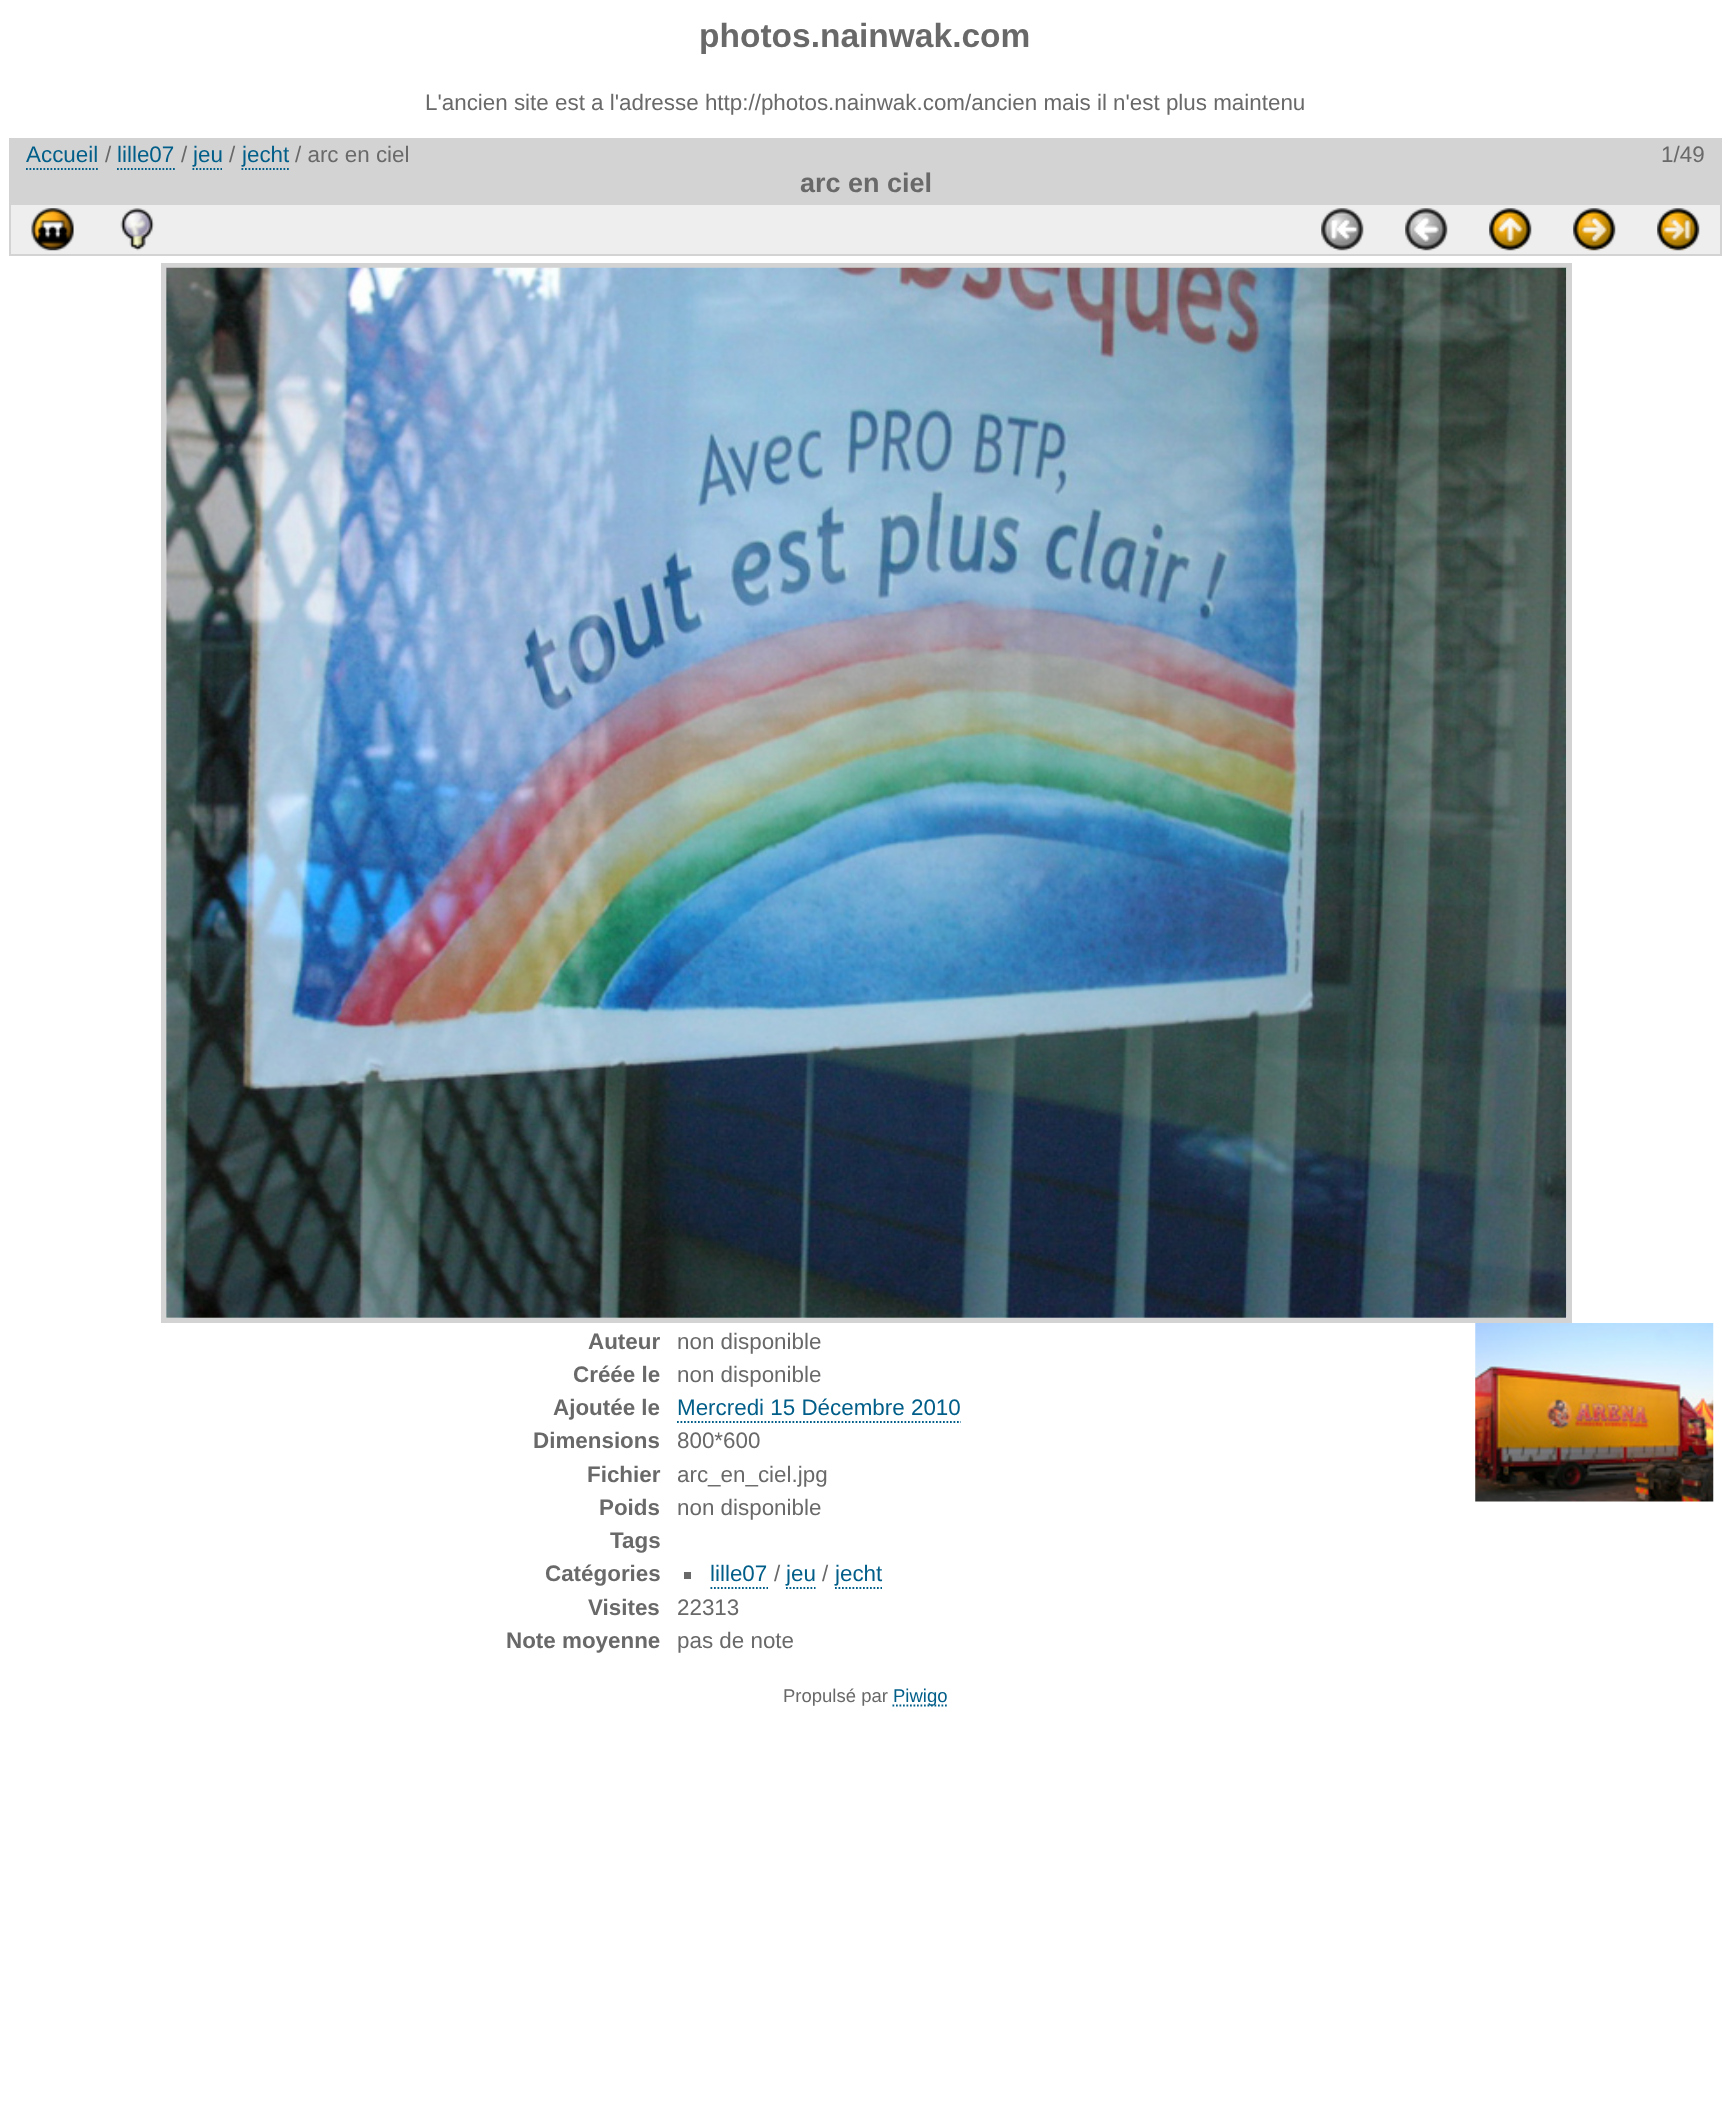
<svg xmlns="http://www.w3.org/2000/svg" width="1730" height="2113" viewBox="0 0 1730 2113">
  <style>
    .t1 { font: bold 33.5px Liberation Sans; fill: #696969; }
    .t2 { font: 22.4px Liberation Sans; fill: #696969; }
    .t3 { font: 22.4px Liberation Sans; fill: #005e89; }
    .t4 { font: bold 27px Liberation Sans; fill: #696969; }
    .t5 { font: bold 22.4px Liberation Sans; fill: #696969; }
    .t6 { font: 18.5px Liberation Sans; fill: #696969; }
    .t7 { font: 18.5px Liberation Sans; fill: #005e89; }
  </style>
  <rect width="100%" height="100%" fill="#fff"/>
  <text x="699" y="47" class="t1">photos.nainwak.com</text>
  <text x="425" y="110" class="t2">L'ancien site est a l'adresse http://photos.nainwak.com/ancien mais il n'est plus maintenu</text>
  <rect x="9" y="138" width="1713" height="65" fill="#d3d3d3"/>
  <text x="26" y="162" class="t3">Accueil</text>
  <path d="M26 169H98" fill="none" stroke="#005e89" stroke-width="1.8" stroke-dasharray="1.75 1.75"/>
  <text x="105" y="162" class="t2">/</text>
  <text x="117" y="162" class="t3">lille07</text>
  <path d="M117 169H175" fill="none" stroke="#005e89" stroke-width="1.8" stroke-dasharray="1.75 1.75"/>
  <text x="181" y="162" class="t2">/</text>
  <text x="193" y="162" class="t3">jeu</text>
  <path d="M192.5 169H222" fill="none" stroke="#005e89" stroke-width="1.8" stroke-dasharray="1.75 1.75"/>
  <text x="229" y="162" class="t2">/</text>
  <text x="242" y="162" class="t3">jecht</text>
  <path d="M241.5 169H289" fill="none" stroke="#005e89" stroke-width="1.8" stroke-dasharray="1.75 1.75"/>
  <text x="295" y="162" class="t2">/ arc en ciel</text>
  <text x="1661" y="162" class="t2">1/49</text>
  <text x="800" y="192" class="t4">arc en ciel</text>
  <rect x="10" y="204" width="1711" height="51" fill="#eee" stroke="#d3d3d3" stroke-width="2"/>
  <image x="31" y="208" width="43" height="43" href="images/1.png"/>
  <image x="120" y="208" width="35" height="43" href="images/2.png"/>
  <image x="1321" y="208" width="43" height="43" href="images/3.png"/>
  <image x="1405" y="208" width="43" height="43" href="images/4.png"/>
  <image x="1489" y="208" width="43" height="43" href="images/5.png"/>
  <image x="1573" y="208" width="43" height="43" href="images/6.png"/>
  <image x="1657" y="208" width="43" height="43" href="images/7.png"/>
  <rect x="163.5" y="265.5" width="1406" height="1055" fill="none" stroke="#d3d3d3" stroke-width="5"/>
  <image x="166" y="267" width="1401" height="1051" href="images/8.png"/>
  <text x="588" y="1349" class="t5">Auteur</text>
  <text x="677" y="1349" class="t2">non disponible</text>
  <text x="573" y="1382" class="t5">Créée le</text>
  <text x="677" y="1382" class="t2">non disponible</text>
  <text x="553" y="1415" class="t5">Ajoutée le</text>
  <text x="677" y="1415" class="t3">Mercredi 15 Décembre 2010</text>
  <path d="M677 1422H961" fill="none" stroke="#005e89" stroke-width="1.8" stroke-dasharray="1.75 1.75"/>
  <text x="533" y="1448" class="t5">Dimensions</text>
  <text x="677" y="1448" class="t2">800*600</text>
  <text x="587" y="1482" class="t5">Fichier</text>
  <text x="677" y="1482" class="t2">arc_en_ciel.jpg</text>
  <text x="599" y="1515" class="t5">Poids</text>
  <text x="677" y="1515" class="t2">non disponible</text>
  <text x="610" y="1548" class="t5">Tags</text>
  <text x="545" y="1581" class="t5">Catégories</text>
  <rect x="684" y="1572" width="7" height="7" fill="#696969"/>
  <text x="710" y="1581" class="t3">lille07</text>
  <path d="M710.5 1588H768" fill="none" stroke="#005e89" stroke-width="1.8" stroke-dasharray="1.75 1.75"/>
  <text x="774" y="1581" class="t2">/</text>
  <text x="786" y="1581" class="t3">jeu</text>
  <path d="M786 1588H815.5" fill="none" stroke="#005e89" stroke-width="1.8" stroke-dasharray="1.75 1.75"/>
  <text x="822" y="1581" class="t2">/</text>
  <text x="835" y="1581" class="t3">jecht</text>
  <path d="M835 1588H882" fill="none" stroke="#005e89" stroke-width="1.8" stroke-dasharray="1.75 1.75"/>
  <text x="588" y="1615" class="t5">Visites</text>
  <text x="677" y="1615" class="t2">22313</text>
  <text x="506" y="1648" class="t5">Note moyenne</text>
  <text x="677" y="1648" class="t2">pas de note</text>
  <image x="1475" y="1323" width="239" height="179" href="images/9.png"/>
  <text x="783" y="1702" class="t6">Propulsé par</text>
  <path d="M892.5 1705.5H948.5" fill="none" stroke="#005e89" stroke-width="1.8" stroke-dasharray="1.75 1.75"/>
  <text x="893" y="1702" class="t7">Piwigo</text>
</svg>
